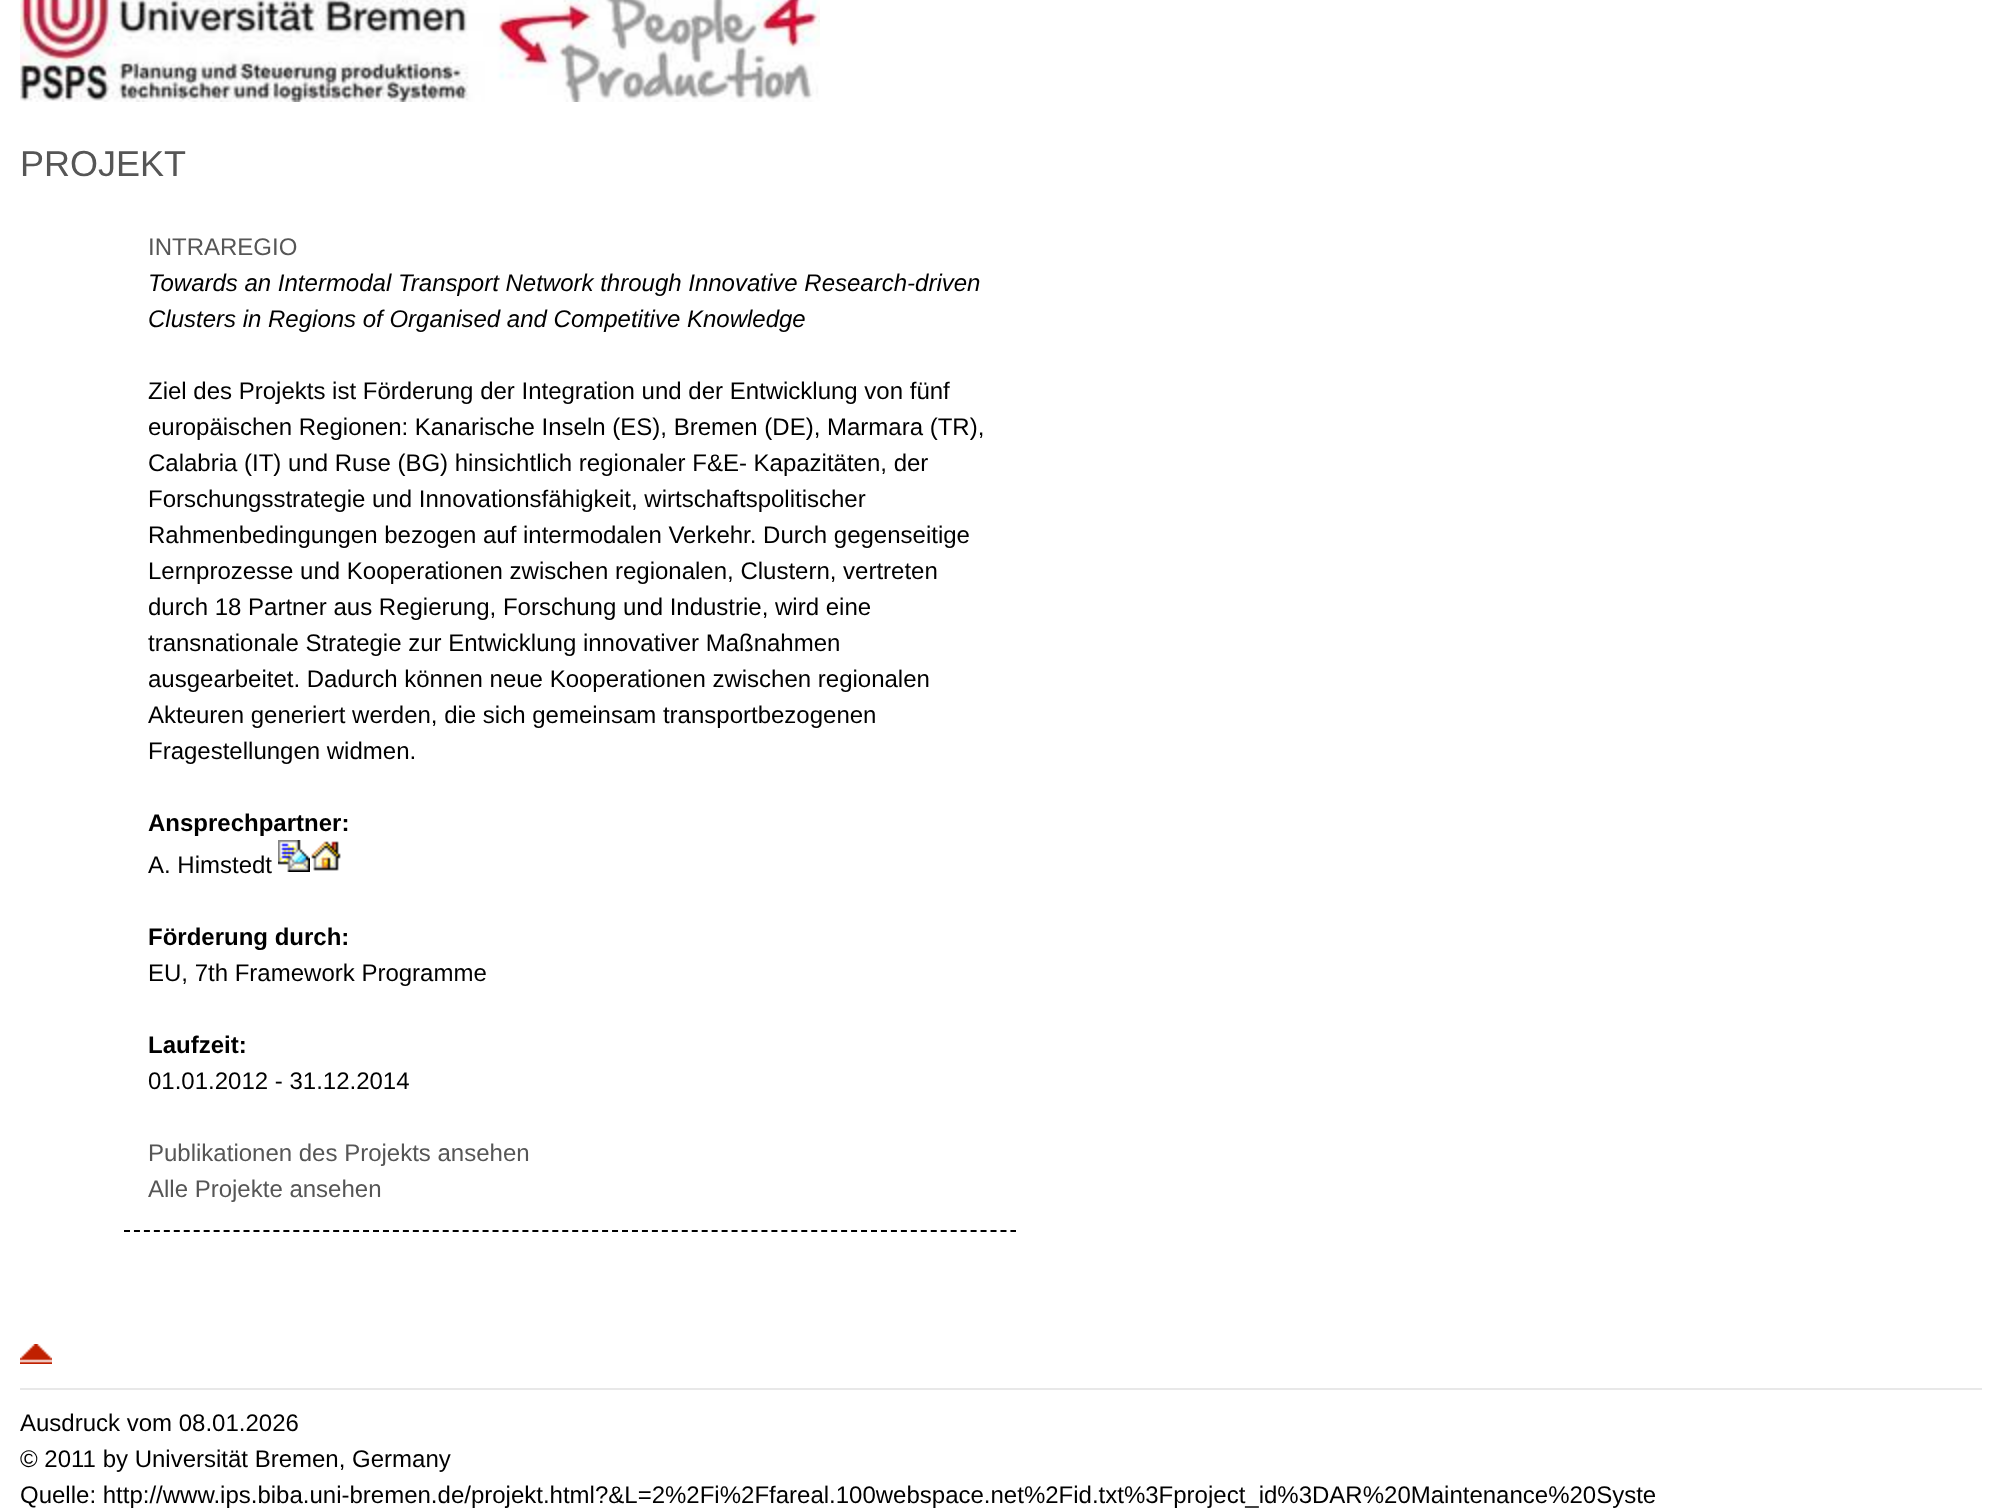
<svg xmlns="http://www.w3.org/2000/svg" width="2001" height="1510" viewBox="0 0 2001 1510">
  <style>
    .t1 { font: 36px Liberation Sans; fill: #565656; }
    .t2 { font: 24px Liberation Sans; fill: #565656; }
    .t3 { font: italic 24px Liberation Sans; fill: #000; }
    .t4 { font: 24px Liberation Sans; fill: #000; }
    .t5 { font: bold 24px Liberation Sans; fill: #000; }
  </style>
  <rect width="100%" height="100%" fill="#fff"/>
  <image x="20" y="0" width="800" height="102" href="images/1.png"/>
  <text x="20" y="176" class="t1">PROJEKT</text>
  <path d="M124 1231H1016" fill="none" stroke="#000" stroke-width="2" stroke-dasharray="6 3.96"/>
  <text x="148" y="255" class="t2">INTRAREGIO</text>
  <text x="148" y="291" class="t3">Towards an Intermodal Transport Network through Innovative Research-driven</text>
  <text x="148" y="327" class="t3">Clusters in Regions of Organised and Competitive Knowledge</text>
  <text x="148" y="399" class="t4">Ziel des Projekts ist Förderung der Integration und der Entwicklung von fünf</text>
  <text x="148" y="435" class="t4">europäischen Regionen: Kanarische Inseln (ES), Bremen (DE), Marmara (TR),</text>
  <text x="148" y="471" class="t4">Calabria (IT) und Ruse (BG) hinsichtlich regionaler F&amp;E- Kapazitäten, der</text>
  <text x="148" y="507" class="t4">Forschungsstrategie und Innovationsfähigkeit, wirtschaftspolitischer</text>
  <text x="148" y="543" class="t4">Rahmenbedingungen bezogen auf intermodalen Verkehr. Durch gegenseitige</text>
  <text x="148" y="579" class="t4">Lernprozesse und Kooperationen zwischen regionalen, Clustern, vertreten</text>
  <text x="148" y="615" class="t4">durch 18 Partner aus Regierung, Forschung und Industrie, wird eine</text>
  <text x="148" y="651" class="t4">transnationale Strategie zur Entwicklung innovativer Maßnahmen</text>
  <text x="148" y="687" class="t4">ausgearbeitet. Dadurch können neue Kooperationen zwischen regionalen</text>
  <text x="148" y="723" class="t4">Akteuren generiert werden, die sich gemeinsam transportbezogenen</text>
  <text x="148" y="759" class="t4">Fragestellungen widmen.</text>
  <text x="148" y="831" class="t5">Ansprechpartner:</text>
  <text x="148" y="873" class="t4">A. Himstedt</text>
  <image x="278" y="840" width="32" height="32" href="images/2.png"/>
  <image x="311" y="841" width="30" height="30" href="images/3.png"/>
  <text x="148" y="945" class="t5">Förderung durch:</text>
  <text x="148" y="981" class="t4">EU, 7th Framework Programme</text>
  <text x="148" y="1053" class="t5">Laufzeit:</text>
  <text x="148" y="1089" class="t4">01.01.2012 - 31.12.2014</text>
  <text x="148" y="1161" class="t2">Publikationen des Projekts ansehen</text>
  <text x="148" y="1197" class="t2">Alle Projekte ansehen</text>
  <image x="20" y="1344" width="32" height="20" href="images/4.png"/>
  <rect x="20" y="1388" width="1962" height="2" fill="#e8e8e8"/>
  <text x="20" y="1431" class="t4">Ausdruck vom 08.01.2026</text>
  <text x="20" y="1467" class="t4">© 2011 by Universität Bremen, Germany</text>
  <text x="20" y="1503" class="t4">Quelle: http://www.ips.biba.uni-bremen.de/projekt.html?&amp;L=2%2Fi%2Ffareal.100webspace.net%2Fid.txt%3Fproject_id%3DAR%20Maintenance%20Syste</text>
</svg>
